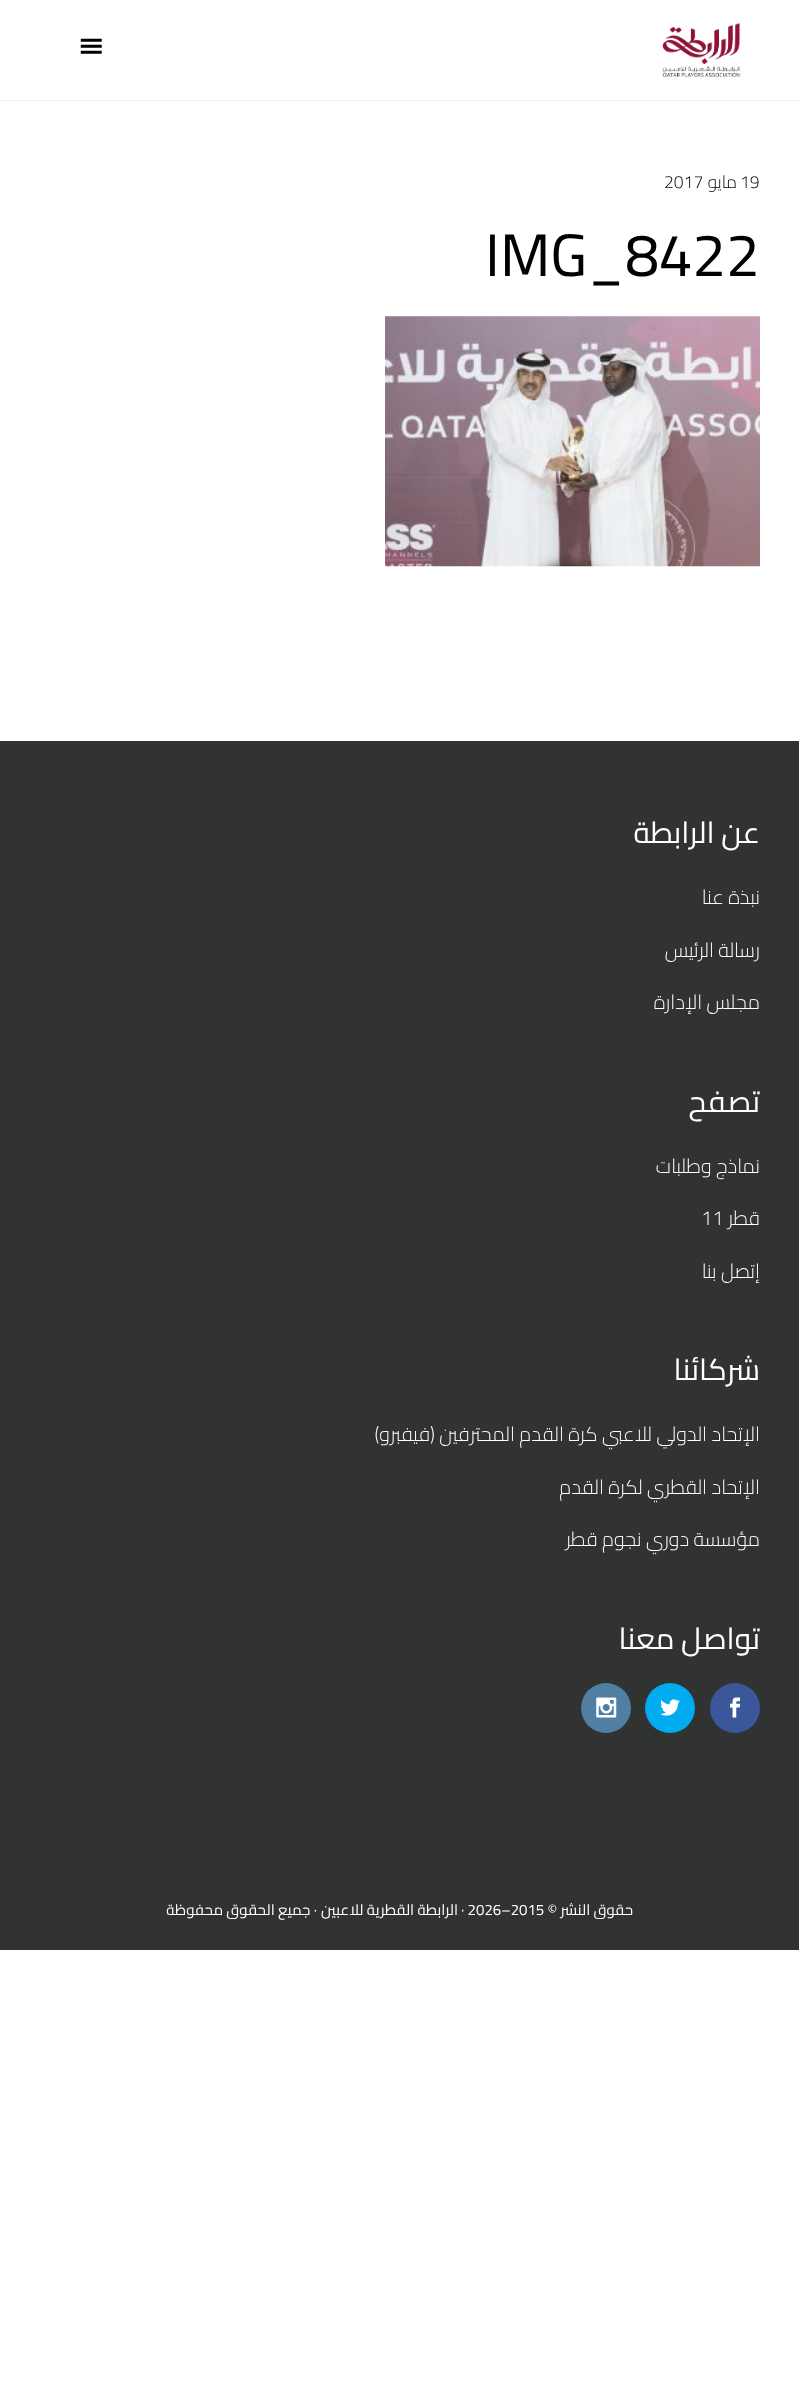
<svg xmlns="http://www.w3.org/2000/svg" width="799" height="2386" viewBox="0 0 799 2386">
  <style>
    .t1 { font: 300 17.5px Cairo; fill: #000; }
    .t2 { font: 300 17.5px Cairo; direction: rtl; fill: #000; }
    .t3 { font: 60px Cairo; fill: #000; }
    .t4 { font: 30px Cairo; direction: rtl; fill: #fff; }
    .t5 { font: 300 20px Cairo; direction: rtl; fill: #fff; }
    .t6 { font: 300 20px Cairo; fill: #fff; }
    .t7 { font: 15px Cairo; direction: rtl; fill: #fff; }
    .t8 { font: 15px Cairo; fill: #fff; }
  </style>
  <rect width="100%" height="100%" fill="#fff"/>
  <rect x="0" y="100" width="799" height="1" fill="#eee"/>
  <image x="662" y="23" width="79" height="55" href="images/1.png"/>
  <image x="80" y="38" width="22" height="16" href="images/2.png"/>
  <text x="740" y="188" class="t1">19</text>
  <text x="737" y="188" class="t2">مايو</text>
  <text x="664" y="188" class="t1">2017</text>
  <text x="485" y="276" class="t3">IMG_8422</text>
  <image x="385" y="316" width="375" height="251" href="images/3.png"/>
  <rect x="0" y="741" width="799" height="1209" fill="#313232"/>
  <text x="760" y="843" class="t4">عن الرابطة</text>
  <text x="760" y="904" class="t5">نبذة عنا</text>
  <text x="760" y="957" class="t5">رسالة الرئيس</text>
  <text x="760" y="1009" class="t5">مجلس الإدارة</text>
  <text x="760" y="1112" class="t4">تصفح</text>
  <text x="760" y="1173" class="t5">نماذج وطلبات</text>
  <text x="760" y="1225" class="t5">قطر</text>
  <text x="701" y="1225" class="t6">11</text>
  <text x="760" y="1278" class="t5">إتصل بنا</text>
  <text x="760" y="1380" class="t4">شركائنا</text>
  <text x="760" y="1441" class="t5">الإتحاد الدولي للاعبي كرة القدم المحترفين (فيفبرو)</text>
  <text x="760" y="1494" class="t5">الإتحاد القطري لكرة القدم</text>
  <text x="760" y="1546" class="t5">مؤسسة دوري نجوم قطر</text>
  <text x="760" y="1649" class="t4">تواصل معنا</text>
  <circle cx="735" cy="1708" r="25" fill="#3a579a"/>
  <image x="730" y="1697" width="10" height="21" href="images/4.png"/>
  <circle cx="670" cy="1708" r="25" fill="#00abf0"/>
  <image x="660" y="1699" width="20" height="17" href="images/5.png"/>
  <circle cx="606" cy="1708" r="25" fill="#517fa4"/>
  <image x="596" y="1697" width="21" height="21" href="images/6.png"/>
  <text x="633" y="1915" class="t7">حقوق النشر ©</text>
  <text x="461" y="1915" class="t8">· 2026–2015</text>
  <text x="458" y="1915" class="t7">الرابطة القطرية للاعبين</text>
  <text x="317" y="1915" class="t7">· جميع الحقوق محفوظة</text>
</svg>
